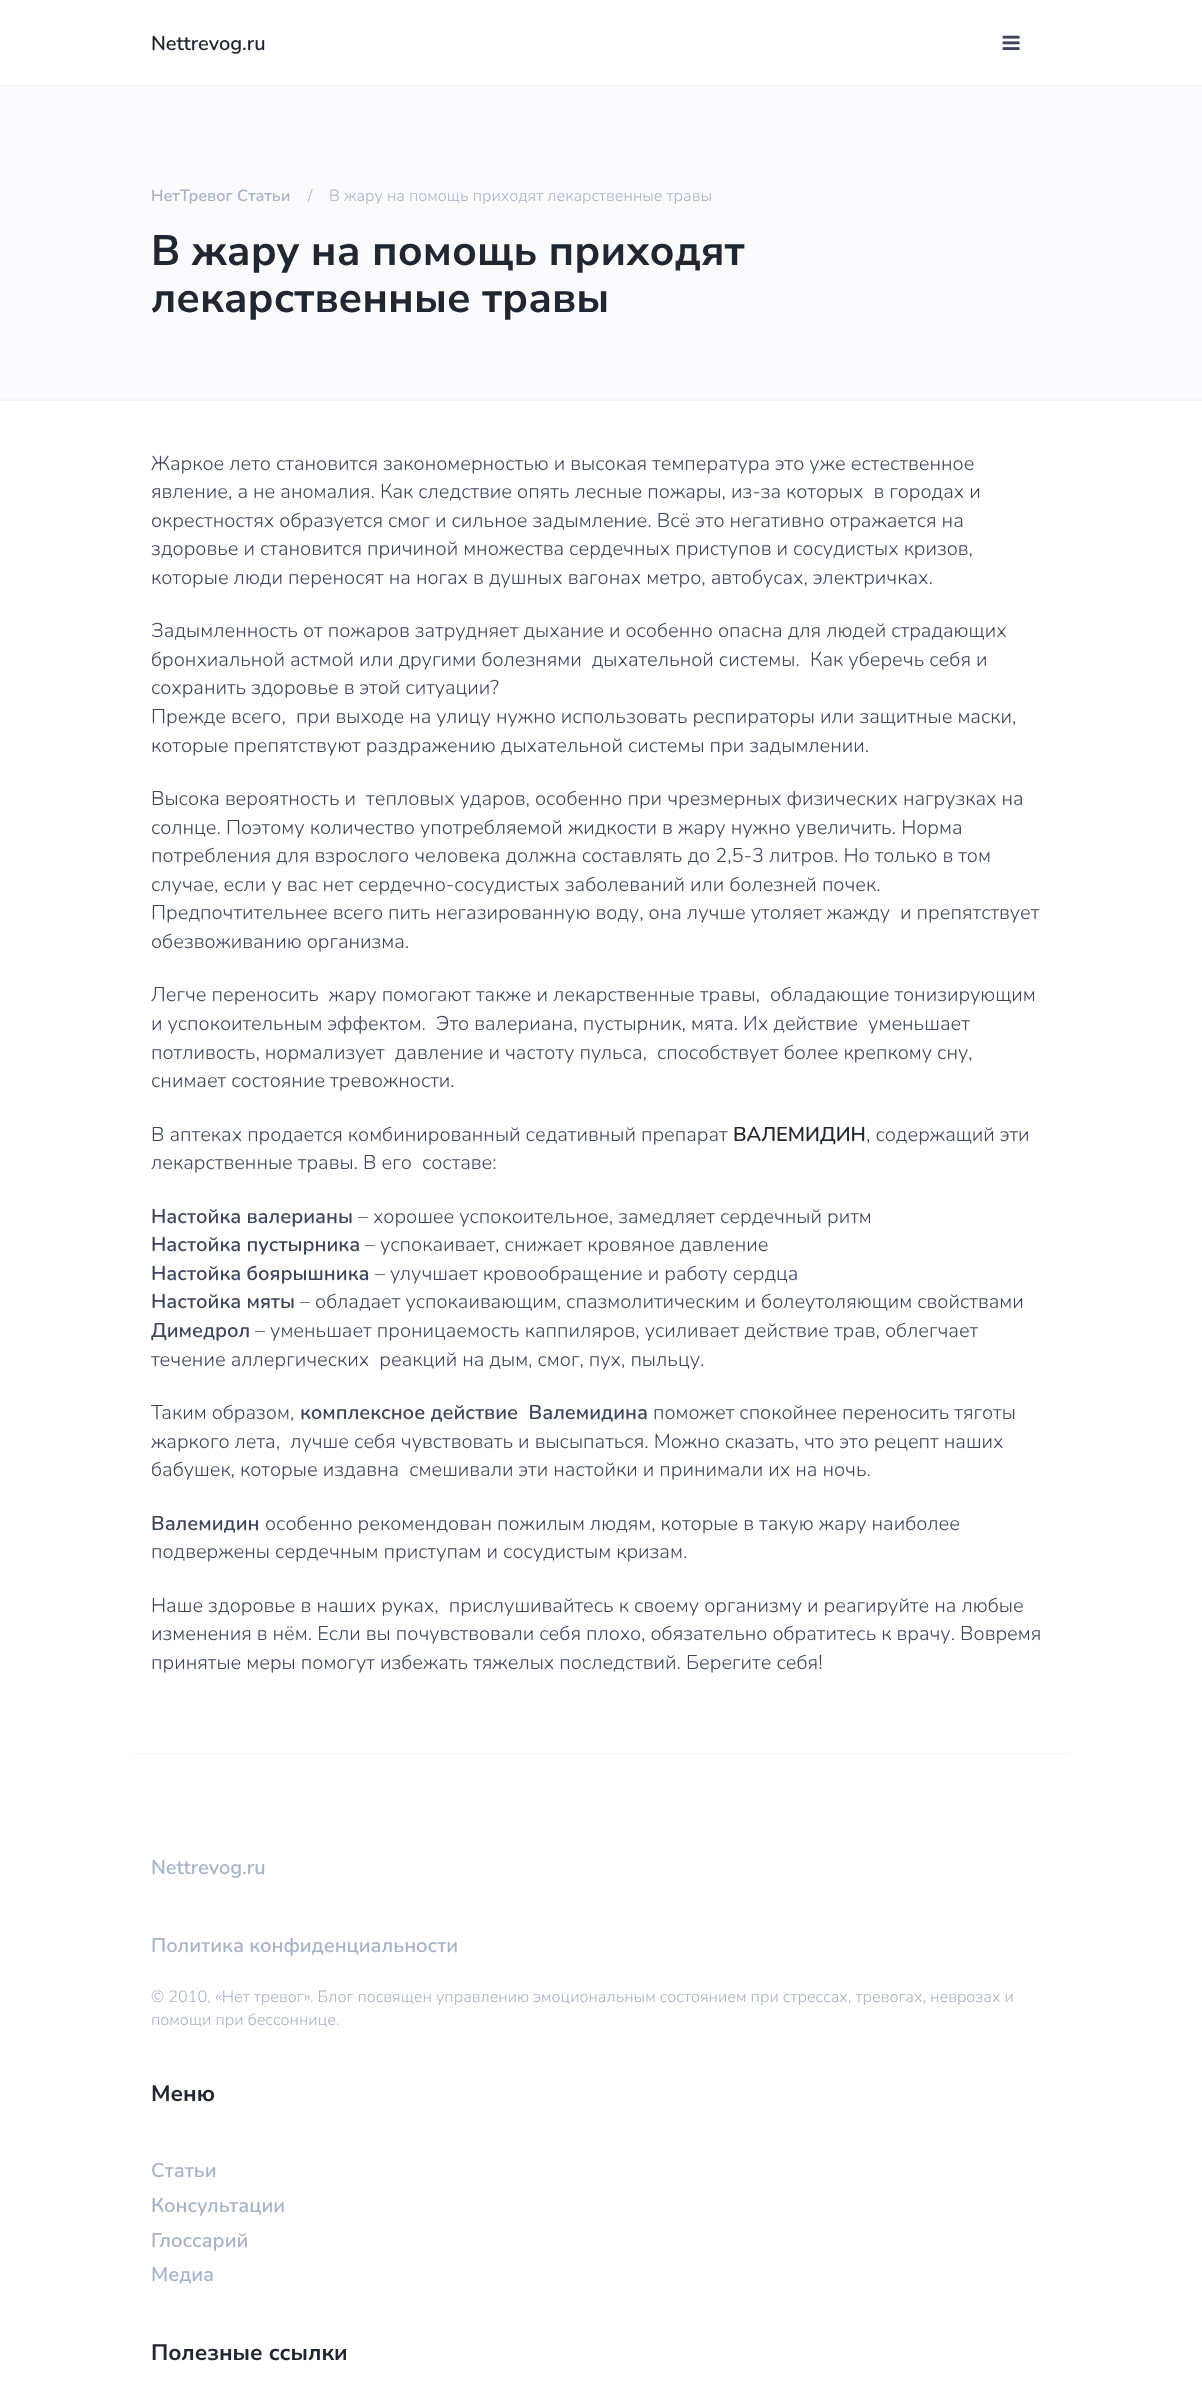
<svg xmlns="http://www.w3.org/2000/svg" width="1202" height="2401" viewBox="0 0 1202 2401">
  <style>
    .t1 { font: 600 20px Nunito; fill: #212631; }
    .t2 { font: 600 16.25px Nunito; fill: #a7b3c6; }
    .t3 { font: 300 16.25px Nunito; fill: #a7b3c6; }
    .t4 { font: 200 42.5px Nunito Sans; fill: #212631; }
    .t5 { font: 300 20px Nunito; fill: #3d455c; }
    .t6 { font: 600 20px Nunito; fill: #3d455c; }
    .t7 { font: 600 20px Nunito; fill: #a7b3c6; }
    .t8 { font: 200 22.5px Nunito Sans; fill: #212631; }
  </style>
  <rect width="100%" height="100%" fill="#fff"/>
  <rect x="0" y="86" width="1202" height="1" fill="#eceef2"/>
  <text x="151" y="50" class="t1">Nettrevog.ru</text>
  <image x="1002" y="35" width="18" height="15" href="images/1.png"/>
  <rect x="0" y="88" width="1202" height="310" fill="#fbfbfd"/>
  <rect x="0" y="398" width="1202" height="3" fill="#f4f4f9"/>
  <text x="151" y="201" class="t2">НетТревог Статьи</text>
  <text x="308" y="201" class="t3">/</text>
  <text x="329" y="201" class="t3">В жару на помощь приходят лекарственные травы</text>
  <text x="151" y="265" class="t4">В жару на помощь приходят</text>
  <text x="151" y="312" class="t4">лекарственные травы</text>
  <text x="151" y="470" class="t5">Жаркое лето становится закономерностью и высокая температура это уже естественное</text>
  <text x="151" y="498" class="t5" xml:space="preserve">явление, а не аномалия. Как следствие опять лесные пожары, из-за которых  в городах и</text>
  <text x="151" y="527" class="t5">окрестностях образуется смог и сильное задымление. Всё это негативно отражается на</text>
  <text x="151" y="555" class="t5">здоровье и становится причиной множества сердечных приступов и сосудистых кризов,</text>
  <text x="151" y="584" class="t5">которые люди переносят на ногах в душных вагонах метро, автобусах, электричках.</text>
  <text x="151" y="637" class="t5">Задымленность от пожаров затрудняет дыхание и особенно опасна для людей страдающих</text>
  <text x="151" y="666" class="t5" xml:space="preserve">бронхиальной астмой или другими болезнями  дыхательной системы.  Как уберечь себя и</text>
  <text x="151" y="694" class="t5">сохранить здоровье в этой ситуации?</text>
  <text x="151" y="723" class="t5" xml:space="preserve">Прежде всего,  при выходе на улицу нужно использовать респираторы или защитные маски,</text>
  <text x="151" y="752" class="t5">которые препятствуют раздражению дыхательной системы при задымлении.</text>
  <text x="151" y="805" class="t5" xml:space="preserve">Высока вероятность и  тепловых ударов, особенно при чрезмерных физических нагрузках на</text>
  <text x="151" y="834" class="t5">солнце. Поэтому количество употребляемой жидкости в жару нужно увеличить. Норма</text>
  <text x="151" y="862" class="t5">потребления для взрослого человека должна составлять до 2,5-3 литров. Но только в том</text>
  <text x="151" y="891" class="t5">случае, если у вас нет сердечно-сосудистых заболеваний или болезней почек.</text>
  <text x="151" y="919" class="t5" xml:space="preserve">Предпочтительнее всего пить негазированную воду, она лучше утоляет жажду  и препятствует</text>
  <text x="151" y="948" class="t5">обезвоживанию организма.</text>
  <text x="151" y="1001" class="t5" xml:space="preserve">Легче переносить  жару помогают также и лекарственные травы,  обладающие тонизирующим</text>
  <text x="151" y="1030" class="t5" xml:space="preserve">и успокоительным эффектом.  Это валериана, пустырник, мята. Их действие  уменьшает</text>
  <text x="151" y="1059" class="t5" xml:space="preserve">потливость, нормализует  давление и частоту пульса,  способствует более крепкому сну,</text>
  <text x="151" y="1087" class="t5">снимает состояние тревожности.</text>
  <text x="151" y="1141" class="t5">В аптеках продается комбинированный седативный препарат</text>
  <text x="733" y="1141" class="t1">ВАЛЕМИДИН</text>
  <text x="866" y="1141" class="t5">, содержащий эти</text>
  <text x="151" y="1169" class="t5" xml:space="preserve">лекарственные травы. В его  составе:</text>
  <text x="151" y="1223" class="t6">Настойка валерианы</text>
  <text x="358" y="1223" class="t5">– хорошее успокоительное, замедляет сердечный ритм</text>
  <text x="151" y="1251" class="t6">Настойка пустырника</text>
  <text x="365" y="1251" class="t5">– успокаивает, снижает кровяное давление</text>
  <text x="151" y="1280" class="t6">Настойка боярышника</text>
  <text x="375" y="1280" class="t5">– улучшает кровообращение и работу сердца</text>
  <text x="151" y="1308" class="t6">Настойка мяты</text>
  <text x="300" y="1308" class="t5">– обладает успокаивающим, спазмолитическим и болеутоляющим свойствами</text>
  <text x="151" y="1337" class="t6">Димедрол</text>
  <text x="255" y="1337" class="t5">– уменьшает проницаемость каппиляров, усиливает действие трав, облегчает</text>
  <text x="151" y="1366" class="t5" xml:space="preserve">течение аллергических  реакций на дым, смог, пух, пыльцу.</text>
  <text x="151" y="1419" class="t5">Таким образом,</text>
  <text x="300" y="1419" class="t6" xml:space="preserve">комплексное действие  Валемидина</text>
  <text x="653" y="1419" class="t5">поможет спокойнее переносить тяготы</text>
  <text x="151" y="1448" class="t5" xml:space="preserve">жаркого лета,  лучше себя чувствовать и высыпаться. Можно сказать, что это рецепт наших</text>
  <text x="151" y="1476" class="t5" xml:space="preserve">бабушек, которые издавна  смешивали эти настойки и принимали их на ночь.</text>
  <text x="151" y="1530" class="t6">Валемидин</text>
  <text x="265" y="1530" class="t5">особенно рекомендован пожилым людям, которые в такую жару наиболее</text>
  <text x="151" y="1558" class="t5">подвержены сердечным приступам и сосудистым кризам.</text>
  <text x="151" y="1612" class="t5" xml:space="preserve">Наше здоровье в наших руках,  прислушивайтесь к своему организму и реагируйте на любые</text>
  <text x="151" y="1640" class="t5">изменения в нём. Если вы почувствовали себя плохо, обязательно обратитесь к врачу. Вовремя</text>
  <text x="151" y="1669" class="t5">принятые меры помогут избежать тяжелых последствий. Берегите себя!</text>
  <rect x="133" y="1753" width="937" height="1" fill="#f4f4f9"/>
  <text x="151" y="1874" class="t7">Nettrevog.ru</text>
  <text x="151" y="1952" class="t7">Политика конфиденциальности</text>
  <text x="151" y="2002" class="t3">© 2010, «Нет тревог». Блог посвящен управлению эмоциональным состоянием при стрессах, тревогах, неврозах и</text>
  <text x="151" y="2025" class="t3">помощи при бессоннице.</text>
  <text x="151" y="2101" class="t8">Меню</text>
  <text x="151" y="2177" class="t7">Статьи</text>
  <text x="151" y="2212" class="t7">Консультации</text>
  <text x="151" y="2247" class="t7">Глоссарий</text>
  <text x="151" y="2281" class="t7">Медиа</text>
  <text x="151" y="2360" class="t8">Полезные ссылки</text>
</svg>
